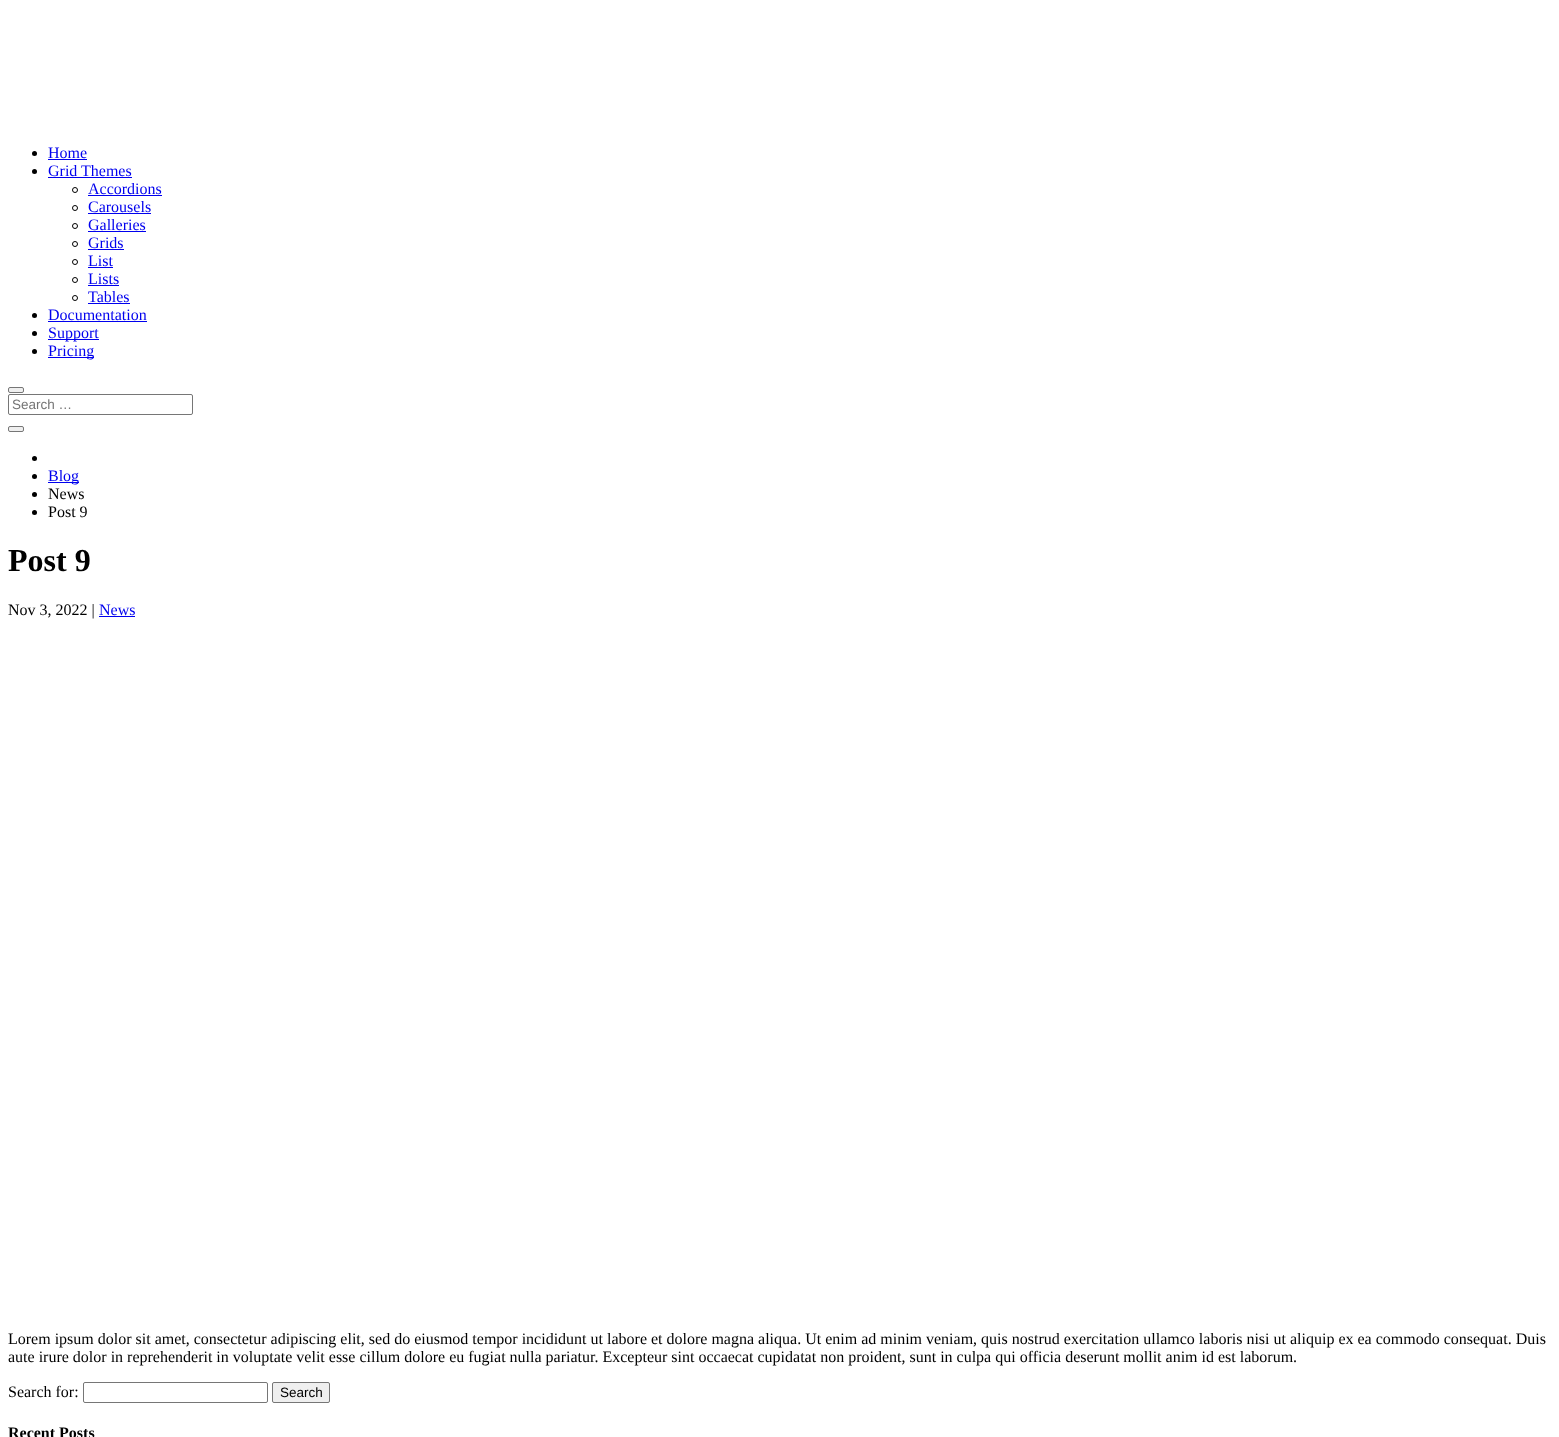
<svg xmlns="http://www.w3.org/2000/svg" width="1559" height="1437" viewBox="0 0 1559 1437">
  <style>
    .t1 { font: 16px Liberation Serif; fill: #00e; }
    .t2 { font: 13.5px Liberation Sans; fill: #757575; }
    .t3 { font: 16px Liberation Serif; fill: #000; }
    .t4 { font: bold 32px Liberation Serif; fill: #000; }
    .t5 { font: 13.5px Liberation Sans; fill: #000; }
    .t6 { font: bold 16px Liberation Serif; fill: #000; }
  </style>
  <rect width="100%" height="100%" fill="#fff"/>
  <circle cx="34.5" cy="153.5" r="2.5" fill="#000"/>
  <text x="48" y="158" class="t1">Home</text>
  <rect x="48" y="159" width="39" height="1" fill="#00e"/>
  <circle cx="34.5" cy="171.5" r="2.5" fill="#000"/>
  <text x="48" y="176" class="t1">Grid Themes</text>
  <rect x="48" y="177" width="84" height="1" fill="#00e"/>
  <circle cx="75" cy="190" r="2.5" fill="none" stroke="#000"/>
  <text x="88" y="194" class="t1">Accordions</text>
  <rect x="88" y="195" width="74" height="1" fill="#00e"/>
  <circle cx="75" cy="208" r="2.5" fill="none" stroke="#000"/>
  <text x="88" y="212" class="t1">Carousels</text>
  <rect x="88" y="213" width="63" height="1" fill="#00e"/>
  <circle cx="75" cy="226" r="2.5" fill="none" stroke="#000"/>
  <text x="88" y="230" class="t1">Galleries</text>
  <rect x="88" y="231" width="58" height="1" fill="#00e"/>
  <circle cx="75" cy="244" r="2.5" fill="none" stroke="#000"/>
  <text x="88" y="248" class="t1">Grids</text>
  <rect x="88" y="249" width="36" height="1" fill="#00e"/>
  <circle cx="75" cy="262" r="2.5" fill="none" stroke="#000"/>
  <text x="88" y="266" class="t1">List</text>
  <rect x="88" y="267" width="25" height="1" fill="#00e"/>
  <circle cx="75" cy="280" r="2.5" fill="none" stroke="#000"/>
  <text x="88" y="284" class="t1">Lists</text>
  <rect x="88" y="285" width="31" height="1" fill="#00e"/>
  <circle cx="75" cy="298" r="2.5" fill="none" stroke="#000"/>
  <text x="88" y="302" class="t1">Tables</text>
  <rect x="88" y="303" width="42" height="1" fill="#00e"/>
  <circle cx="34.5" cy="315.5" r="2.5" fill="#000"/>
  <text x="48" y="320" class="t1">Documentation</text>
  <rect x="48" y="321" width="99" height="1" fill="#00e"/>
  <circle cx="34.5" cy="333.5" r="2.5" fill="#000"/>
  <rect x="48" y="339" width="51" height="1" fill="#00e"/>
  <text x="48" y="338" class="t1">Support</text>
  <circle cx="34.5" cy="351.5" r="2.5" fill="#000"/>
  <rect x="48" y="357" width="46" height="1" fill="#00e"/>
  <text x="48" y="356" class="t1">Pricing</text>
  <rect x="8.5" y="387.5" width="15" height="5" rx="1.5" fill="#efefef" stroke="#767676"/>
  <rect x="8.5" y="394.5" width="184" height="20" rx="1.5" fill="none" stroke="#767676"/>
  <text x="12" y="409" class="t2">Search …</text>
  <rect x="8.5" y="426.5" width="15" height="5" rx="1.5" fill="#efefef" stroke="#767676"/>
  <circle cx="34.5" cy="458.5" r="2.5" fill="#000"/>
  <circle cx="34.5" cy="476.5" r="2.5" fill="#000"/>
  <rect x="48" y="482" width="31" height="1" fill="#00e"/>
  <text x="48" y="481" class="t1">Blog</text>
  <circle cx="34.5" cy="494.5" r="2.5" fill="#000"/>
  <text x="48" y="499" class="t3">News</text>
  <circle cx="34.5" cy="512.5" r="2.5" fill="#000"/>
  <text x="48" y="517" class="t3">Post 9</text>
  <text x="8" y="571" class="t4">Post 9</text>
  <text x="8" y="615" class="t3">Nov 3, 2022 |</text>
  <text x="99" y="615" class="t1">News</text>
  <rect x="99" y="616" width="36" height="1" fill="#00e"/>
  <text x="8" y="1344" class="t3">Lorem ipsum dolor sit amet, consectetur adipiscing elit, sed do eiusmod tempor incididunt ut labore et dolore magna aliqua. Ut enim ad minim veniam, quis nostrud exercitation ullamco laboris nisi ut aliquip ex ea commodo consequat. Duis</text>
  <text x="8" y="1362" class="t3">aute irure dolor in reprehenderit in voluptate velit esse cillum dolore eu fugiat nulla pariatur. Excepteur sint occaecat cupidatat non proident, sunt in culpa qui officia deserunt mollit anim id est laborum.</text>
  <text x="8" y="1397" class="t3">Search for:</text>
  <rect x="83.5" y="1382.5" width="184" height="20" rx="1.5" fill="none" stroke="#767676"/>
  <rect x="272.5" y="1382.5" width="57" height="20" rx="1.5" fill="#efefef" stroke="#767676"/>
  <text x="280" y="1397" class="t5">Search</text>
  <text x="8" y="1438" class="t6">Recent Posts</text>
</svg>
